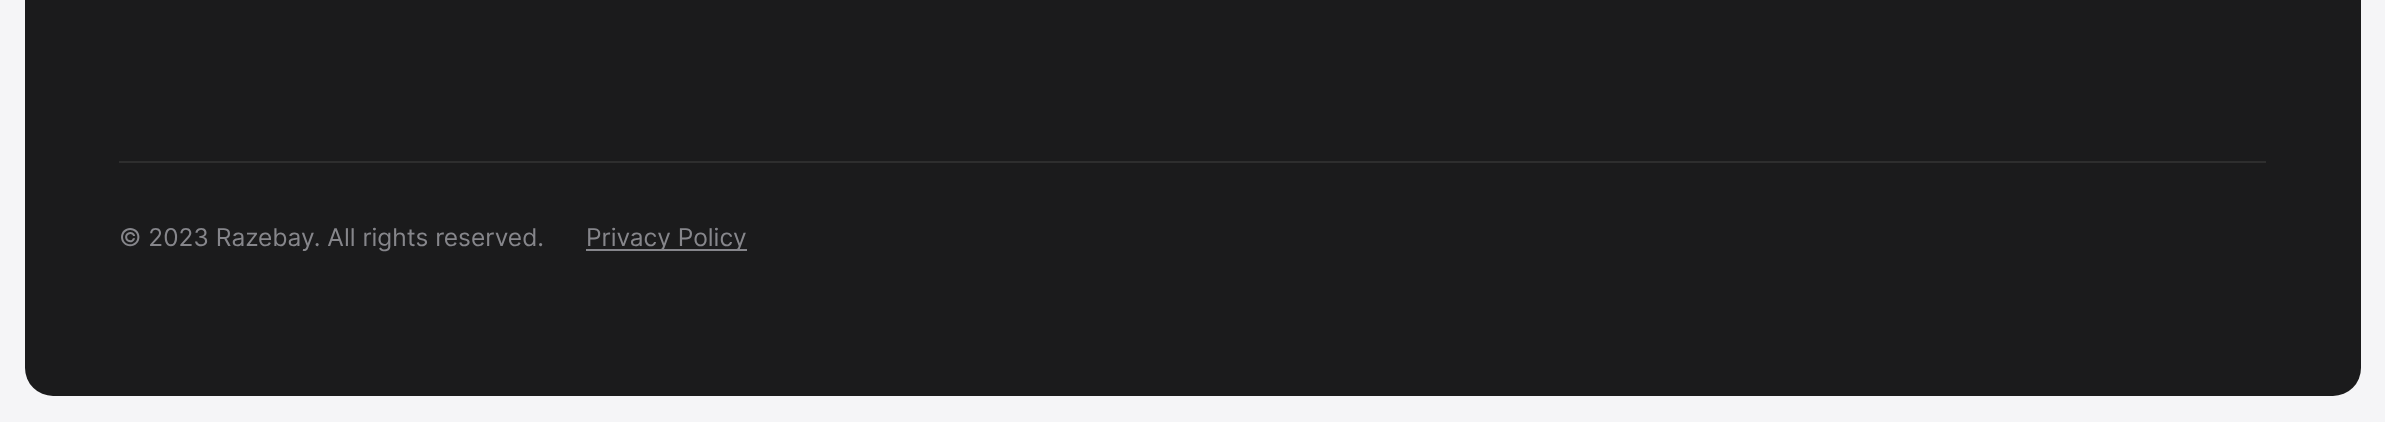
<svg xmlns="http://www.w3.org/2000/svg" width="2385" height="422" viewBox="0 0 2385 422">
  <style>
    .t1 { font: 24.5px Inter; fill: #86868b; }
  </style>
  <rect width="100%" height="100%" fill="#f5f5f7"/>
  <rect x="25" y="-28" width="2336" height="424" rx="28" fill="#1b1b1c"/>
  <rect x="119" y="161" width="2147" height="2" fill="#2e2e2e"/>
  <text x="119" y="246" class="t1">© 2023 Razebay. All rights reserved.</text>
  <rect x="586" y="249" width="161" height="2" fill="#86868b"/>
  <text x="586" y="246" class="t1">Privacy Policy</text>
</svg>
